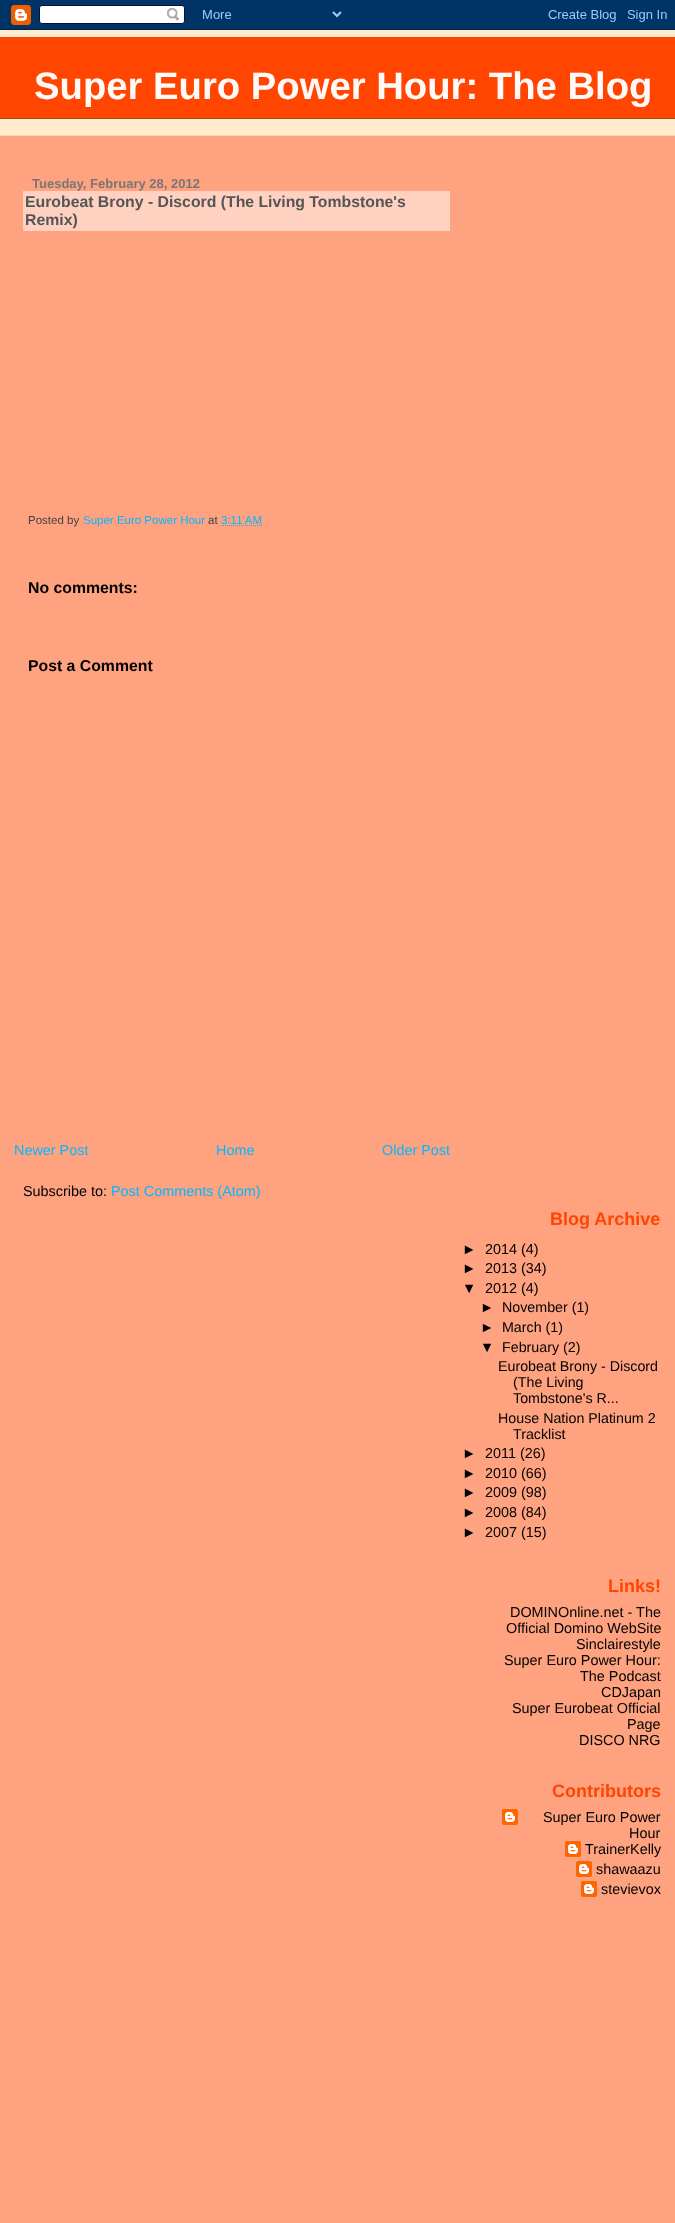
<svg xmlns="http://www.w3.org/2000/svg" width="675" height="2223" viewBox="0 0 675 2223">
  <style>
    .t1 { font: bold 38.25px Liberation Sans; fill: #fffafa; }
    .t2 { font: bold 13px Liberation Sans; fill: #777; }
    .t3 { font: bold 15.8px Liberation Sans; fill: #555; }
    .t4 { font: 11.5px Liberation Sans; fill: #444; }
    .t5 { font: 11.5px Liberation Sans; fill: #00b9ff; }
    .t6 { font: bold 15.8px Liberation Sans; fill: #000; }
    .t7 { font: 14.4px Liberation Sans; fill: #00b9ff; }
    .t8 { font: 14.4px Liberation Sans; fill: #000; }
    .t9 { font: bold 18px Liberation Sans; fill: #ff4500; }
    .t10 { font: 14.25px Liberation Sans; fill: #000; }
  </style>
  <defs>
    <clipPath id="clip1"><rect x="14" y="1142" width="436" height="16"/></clipPath>
  </defs>
  <rect width="100%" height="100%" fill="#ffa280"/>
  <image x="0" y="0" width="675" height="30" href="images/1.png"/>
  <rect x="0" y="30" width="675" height="105" fill="#ffebcd"/>
  <rect x="0" y="135" width="675" height="1" fill="#ffd1c0"/>
  <rect x="0" y="37" width="675" height="81" fill="#ff4500"/>
  <rect x="0" y="118" width="675" height="1" fill="#9e5205"/>
  <text x="34" y="99" class="t1">Super Euro Power Hour: The Blog</text>
  <text x="32" y="188" class="t2">Tuesday, February 28, 2012</text>
  <rect x="23" y="191" width="427" height="40" fill="#ffd1c0"/>
  <text x="25" y="207" class="t3">Eurobeat Brony - Discord (The Living Tombstone's</text>
  <text x="25" y="225" class="t3">Remix)</text>
  <text x="28" y="524" class="t4">Posted by</text>
  <text x="83" y="524" class="t5">Super Euro Power Hour</text>
  <text x="208" y="524" class="t4">at</text>
  <text x="221" y="524" class="t5">3:11 AM</text>
  <path d="M221 525.5H262" fill="none" stroke="#00b9ff" stroke-dasharray="1 1"/>
  <text x="28" y="593" class="t6">No comments:</text>
  <text x="28" y="671" class="t6">Post a Comment</text>
  <text x="14" y="1155" class="t7">Newer Post</text>
  <text x="216" y="1155" class="t7">Home</text>
  <g clip-path="url(#clip1)">
    <text x="382" y="1155" class="t7">Older Post</text>
  </g>
  <text x="23" y="1196" class="t8">Subscribe to:</text>
  <text x="111" y="1196" class="t7">Post Comments (Atom)</text>
  <text x="550" y="1225" class="t9">Blog Archive</text>
  <text x="462" y="1254" class="t8">►</text>
  <text x="485" y="1254" class="t8">2014 (4)</text>
  <text x="462" y="1273" class="t8">►</text>
  <text x="485" y="1273" class="t8">2013 (34)</text>
  <text x="462" y="1293" class="t8">▼</text>
  <text x="485" y="1293" class="t8">2012 (4)</text>
  <text x="480" y="1312" class="t10">►</text>
  <text x="502" y="1312" class="t10">November (1)</text>
  <text x="480" y="1332" class="t10">►</text>
  <text x="502" y="1332" class="t10">March (1)</text>
  <text x="480" y="1352" class="t10">▼</text>
  <text x="502" y="1352" class="t10">February (2)</text>
  <text x="498" y="1371" class="t10">Eurobeat Brony - Discord</text>
  <text x="513" y="1387" class="t10">(The Living</text>
  <text x="513" y="1403" class="t10">Tombstone's R...</text>
  <text x="498" y="1423" class="t10">House Nation Platinum 2</text>
  <text x="513" y="1439" class="t10">Tracklist</text>
  <text x="462" y="1458" class="t8">►</text>
  <text x="485" y="1458" class="t8">2011 (26)</text>
  <text x="462" y="1478" class="t8">►</text>
  <text x="485" y="1478" class="t8">2010 (66)</text>
  <text x="462" y="1497" class="t8">►</text>
  <text x="485" y="1497" class="t8">2009 (98)</text>
  <text x="462" y="1517" class="t8">►</text>
  <text x="485" y="1517" class="t8">2008 (84)</text>
  <text x="462" y="1537" class="t8">►</text>
  <text x="485" y="1537" class="t8">2007 (15)</text>
  <text x="608" y="1592" class="t9">Links!</text>
  <text x="510" y="1617" class="t8">DOMINOnline.net - The</text>
  <text x="506" y="1633" class="t8">Official Domino WebSite</text>
  <text x="576" y="1649" class="t8">Sinclairestyle</text>
  <text x="504" y="1665" class="t8">Super Euro Power Hour:</text>
  <text x="580" y="1681" class="t8">The Podcast</text>
  <text x="601" y="1697" class="t8">CDJapan</text>
  <text x="512" y="1713" class="t8">Super Eurobeat Official</text>
  <text x="627" y="1729" class="t8">Page</text>
  <text x="579" y="1745" class="t8">DISCO NRG</text>
  <text x="552" y="1797" class="t9">Contributors</text>
  <image x="502" y="1809" width="16" height="16" href="images/2.png"/>
  <text x="543" y="1822" class="t8">Super Euro Power</text>
  <text x="629" y="1838" class="t8">Hour</text>
  <image x="565" y="1841" width="16" height="16" href="images/2.png"/>
  <text x="585" y="1854" class="t8">TrainerKelly</text>
  <image x="576" y="1861" width="16" height="16" href="images/2.png"/>
  <text x="596" y="1874" class="t8">shawaazu</text>
  <image x="581" y="1881" width="16" height="16" href="images/2.png"/>
  <text x="601" y="1894" class="t8">stevievox</text>
</svg>
